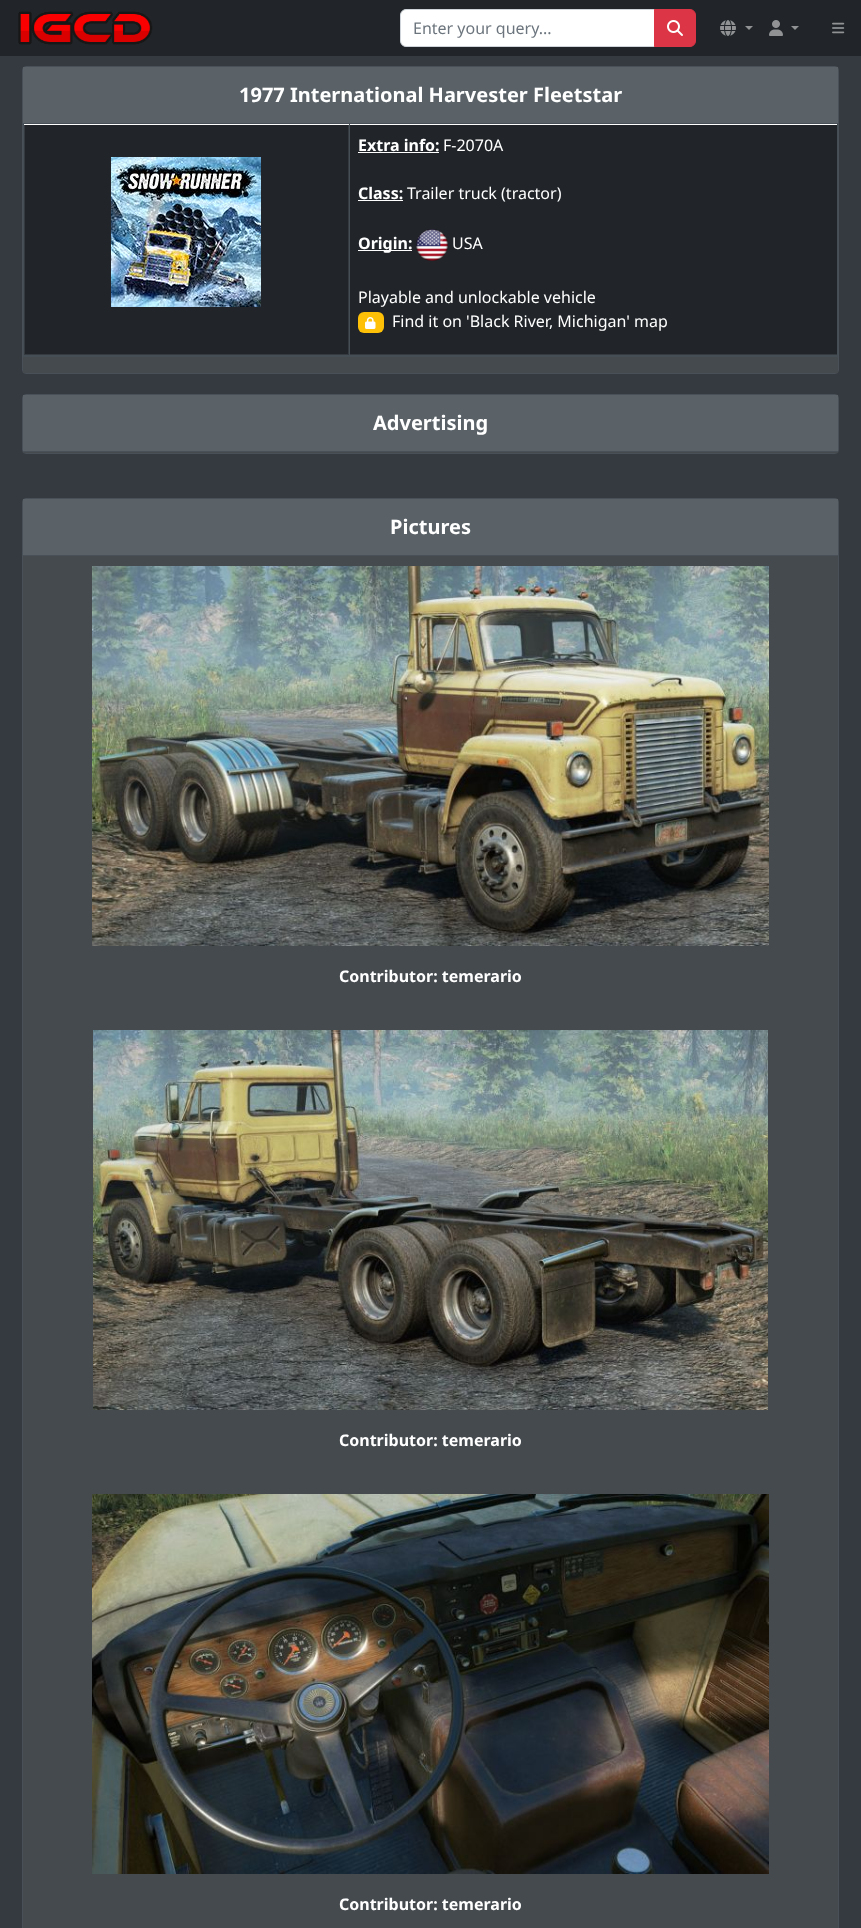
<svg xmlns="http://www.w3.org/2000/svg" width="861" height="1928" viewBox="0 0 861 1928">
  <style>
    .t1 { font: 16px Noto Sans; fill: #6c757d; }
    .t2 { font: bold 20px Noto Sans; fill: #fff; }
    .t3 { font: bold 16px Noto Sans; fill: #fff; }
    .t4 { font: 16px Noto Sans; fill: #fff; }
  </style>
  <rect width="100%" height="100%" fill="#343a40"/>
  <rect x="0" y="0" width="861" height="56" fill="#212529"/>
  <image x="18" y="11" width="135" height="34" href="images/1.png"/>
  <path d="M406 9.5H654.5V46.5H406C403 46.5 400.5 44 400.5 41V15C400.5 12 403 9.5 406 9.5Z" fill="#fff" stroke="#ced4da"/>
  <text x="413" y="34" class="t1">Enter your query...</text>
  <path d="M654.5 9.5H690C693 9.5 695.5 12 695.5 15V41C695.5 44 693 46.5 690 46.5H654.5Z" fill="#dc3545" stroke="#dc3545"/>
  <image x="667" y="20" width="16" height="16" href="images/2.png"/>
  <image x="720" y="20" width="16" height="16" href="images/3.png"/>
  <path d="M745 26H753L749 30Z" fill="#909294"/>
  <image x="769" y="20" width="14" height="16" href="images/4.png"/>
  <path d="M791 26H799L795 30Z" fill="#909294"/>
  <image x="832" y="22" width="13" height="12" href="images/5.png"/>
  <rect x="22.5" y="66.5" width="816" height="307" rx="3.5" fill="none" stroke="#495057"/>
  <rect x="23" y="67" width="815" height="56" fill="#5a6268"/>
  <rect x="23" y="123" width="815" height="1" fill="#495057"/>
  <text x="239" y="102" class="t2">1977 International Harvester Fleetstar</text>
  <rect x="23" y="357" width="815" height="16" fill="#454a4f"/>
  <rect x="23" y="124" width="815" height="1" fill="#fff"/>
  <rect x="25" y="125" width="323" height="229" fill="#212529"/>
  <rect x="23" y="124" width="1" height="233" fill="#454d55"/>
  <image x="111" y="157" width="150" height="150" href="images/6.png"/>
  <rect x="350" y="125" width="487" height="229" fill="#212529"/>
  <rect x="837" y="124" width="1" height="233" fill="#454d55"/>
  <rect x="349" y="124" width="1" height="233" fill="#454d55"/>
  <rect x="23" y="355" width="815" height="2" fill="#454d55"/>
  <text x="358" y="151" class="t3">Extra info:</text>
  <rect x="358" y="152" width="81" height="1" fill="#fff"/>
  <text x="443" y="151" class="t4">F-2070A</text>
  <text x="358" y="199" class="t3">Class:</text>
  <rect x="358" y="200" width="45" height="1" fill="#fff"/>
  <text x="407" y="199" class="t4">Trailer truck (tractor)</text>
  <rect x="358" y="250" width="54" height="1" fill="#fff"/>
  <text x="358" y="249" class="t3">Origin:</text>
  <image x="416" y="229" width="32" height="32" href="images/7.png"/>
  <text x="452" y="249" class="t4">USA</text>
  <text x="358" y="303" class="t4">Playable and unlockable vehicle</text>
  <rect x="358" y="312" width="26" height="21" rx="6" fill="#ffc107"/>
  <image x="365" y="317" width="11" height="12" href="images/8.png"/>
  <text x="392" y="327" class="t4">Find it on 'Black River, Michigan' map</text>
  <rect x="22.5" y="394.5" width="816" height="59" rx="3.5" fill="none" stroke="#495057"/>
  <rect x="23" y="395" width="815" height="56" fill="#5a6268"/>
  <rect x="23" y="451" width="815" height="1" fill="#495057"/>
  <text x="373" y="430" class="t2">Advertising</text>
  <rect x="23" y="452" width="815" height="1" fill="#454a4f"/>
  <rect x="22.5" y="498.5" width="816" height="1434" rx="3.5" fill="#454a4f" stroke="#495057"/>
  <rect x="23" y="499" width="815" height="56" fill="#5a6268"/>
  <rect x="23" y="555" width="815" height="1" fill="#495057"/>
  <text x="390" y="534" class="t2">Pictures</text>
  <image x="92" y="566" width="677" height="380" href="images/9.png"/>
  <text x="339" y="982" class="t3">Contributor: temerario</text>
  <image x="93" y="1030" width="675" height="380" href="images/10.png"/>
  <text x="339" y="1446" class="t3">Contributor: temerario</text>
  <image x="92" y="1494" width="677" height="380" href="images/11.png"/>
  <text x="339" y="1910" class="t3">Contributor: temerario</text>
</svg>
